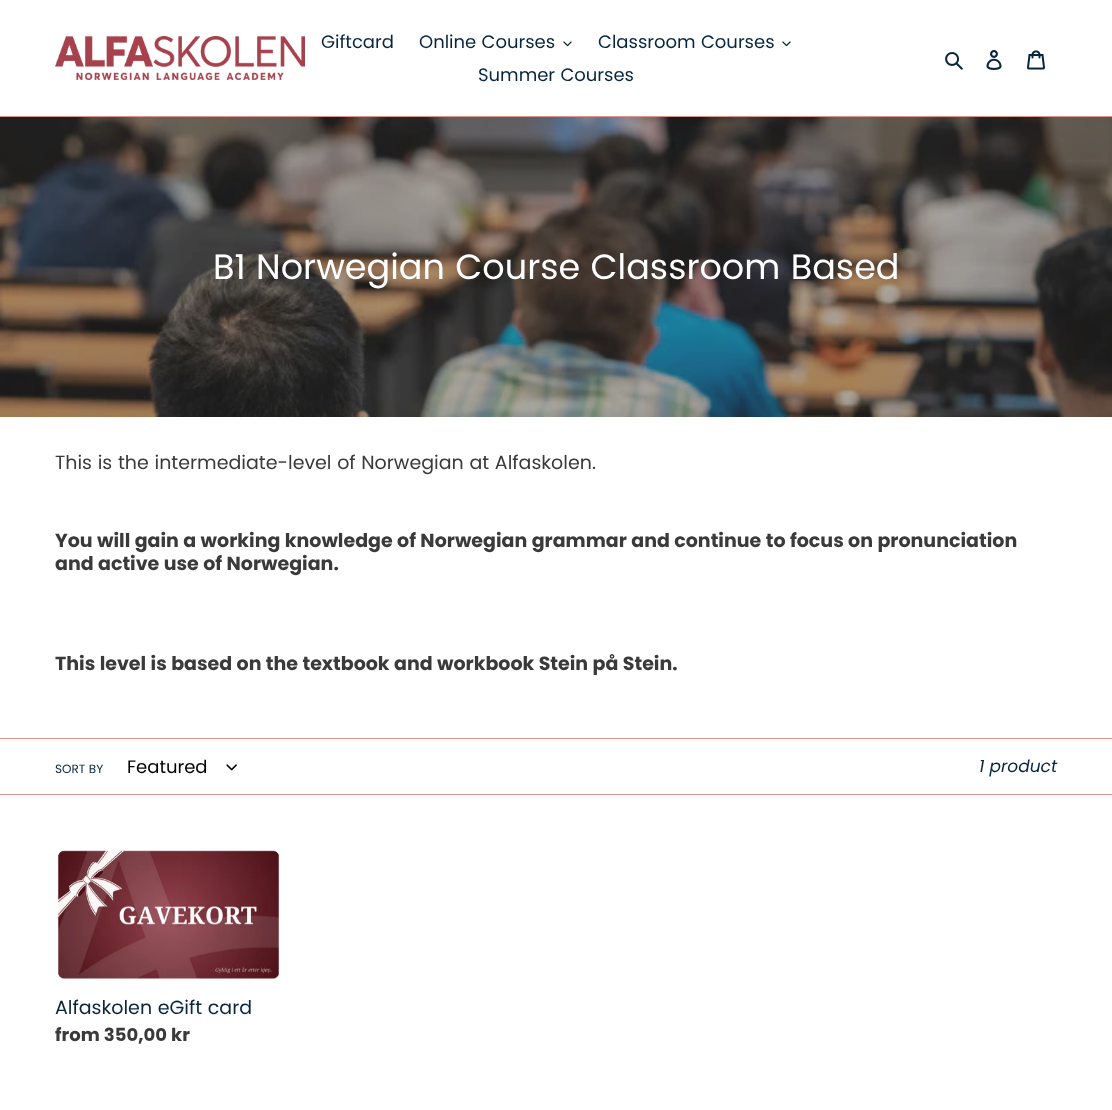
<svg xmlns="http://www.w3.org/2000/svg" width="1112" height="1110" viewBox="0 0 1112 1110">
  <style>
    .t1 { font: 18px Poppins; fill: #082640; }
    .t2 { font: 35px Poppins; fill: #fff; }
    .t3 { font: 19px Poppins; fill: #3a3a3a; }
    .t4 { font: bold 19px Poppins; fill: #3a3a3a; }
    .t5 { font: 12px Poppins; fill: #082640; }
    .t6 { font: 18px Poppins; fill: #000; }
    .t7 { font: italic 17px Poppins; fill: #082640; }
    .t8 { font: 19px Poppins; fill: #082640; }
    .t9 { font: bold 18px Poppins; fill: #3a3a3a; }
  </style>
  <rect width="100%" height="100%" fill="#fff"/>
  <rect x="0" y="116" width="1112" height="1" fill="#e0948c"/>
  <image x="55" y="36" width="250" height="44" href="images/1.png"/>
  <text x="321" y="48" class="t1">Giftcard</text>
  <text x="419" y="48" class="t1">Online Courses</text>
  <image x="563" y="41" width="9" height="6" href="images/2.png"/>
  <text x="598" y="48" class="t1">Classroom Courses</text>
  <image x="782" y="41" width="9" height="6" href="images/2.png"/>
  <text x="478" y="81" class="t1">Summer Courses</text>
  <image x="945" y="52" width="18" height="18" href="images/3.png"/>
  <image x="986" y="50" width="16" height="20" href="images/4.png"/>
  <image x="1027" y="50" width="18" height="20" href="images/5.png"/>
  <image x="0" y="117" width="1112" height="300" href="images/6.png"/>
  <text x="213" y="279" class="t2">B1 Norwegian Course Classroom Based</text>
  <text x="55" y="469" class="t3">This is the intermediate-level of Norwegian at Alfaskolen.</text>
  <text x="55" y="547" class="t4">You will gain a working knowledge of Norwegian grammar and continue to focus on pronunciation</text>
  <text x="55" y="570" class="t4">and active use of Norwegian.</text>
  <text x="55" y="670" class="t4">This level is based on the textbook and workbook Stein på Stein.</text>
  <rect x="0" y="738" width="1112" height="1" fill="#e0948c"/>
  <rect x="0" y="794" width="1112" height="1" fill="#e0948c"/>
  <text x="55" y="773" class="t5">SORT BY</text>
  <text x="127" y="773" class="t6">Featured</text>
  <image x="226" y="764" width="11" height="7" href="images/7.png"/>
  <text x="979" y="772" class="t7">1 product</text>
  <image x="58" y="850" width="222" height="129" href="images/8.png"/>
  <text x="55" y="1014" class="t8">Alfaskolen eGift card</text>
  <text x="55" y="1041" class="t9">from 350,00 kr</text>
</svg>
